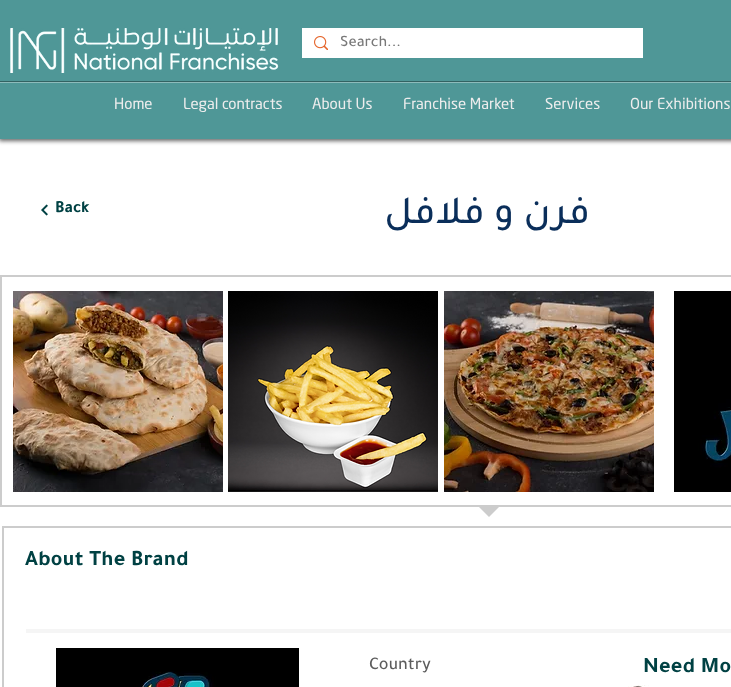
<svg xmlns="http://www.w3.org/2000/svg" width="731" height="687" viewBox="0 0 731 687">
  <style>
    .t1 { font: 500 16px Tajawal; fill: #787878; }
    .t2 { font: 15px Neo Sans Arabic; fill: #ededed; }
    .t3 { font: bold 17px Tajawal; fill: #004143; }
    .t4 { font: 500 40px Tajawal; direction: rtl; fill: #0a2e5a; }
    .t5 { font: bold 22px Tajawal; letter-spacing: 0.25px; fill: #004143; }
    .t6 { font: 500 18px Tajawal; fill: #5c5c5c; }
  </style>
  <rect width="100%" height="100%" fill="#fff"/>
  <rect x="-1" y="0" width="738" height="141" fill="#00000099" filter="blur(2px)"/>
  <rect x="0" y="0" width="731" height="139" fill="#4f9797"/>
  <image x="10" y="28" width="269" height="45" href="images/1.png"/>
  <rect x="302" y="28" width="341" height="30" fill="#fff"/>
  <image x="314" y="36" width="14" height="14" href="images/2.png"/>
  <text x="340" y="46" class="t1">Search...</text>
  <rect x="0" y="81" width="731" height="1" fill="#336262"/>
  <rect x="0" y="82" width="731" height="1" fill="#8dbbbb"/>
  <text x="114" y="109" class="t2">Home</text>
  <text x="183" y="109" class="t2">Legal contracts</text>
  <text x="312" y="109" class="t2">About Us</text>
  <text x="403" y="109" class="t2">Franchise Market</text>
  <text x="545" y="109" class="t2">Services</text>
  <text x="630" y="109" class="t2">Our Exhibitions</text>
  <image x="41" y="204" width="7" height="12" href="images/3.png"/>
  <text x="55" y="212" class="t3">Back</text>
  <text x="590" y="223" class="t4">فرن و فلافل</text>
  <rect x="1" y="276" width="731" height="230" fill="none" stroke="#ccc" stroke-width="2"/>
  <image x="13" y="291" width="210" height="201" href="images/4.png"/>
  <image x="228" y="291" width="210" height="201" href="images/5.png"/>
  <image x="444" y="291" width="210" height="201" href="images/6.png"/>
  <image x="674" y="291" width="57" height="201" href="images/7.png"/>
  <path d="M479 507H499L489 517Z" fill="#ccc"/>
  <rect x="3" y="527" width="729" height="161" fill="none" stroke="#ccc" stroke-width="2"/>
  <text x="25" y="565" class="t5">About The Brand</text>
  <rect x="26" y="629" width="705" height="4" fill="#f5f5f5"/>
  <image x="56" y="648" width="243" height="39" href="images/8.png"/>
  <text x="369" y="669" class="t6">Country</text>
  <text x="643" y="672" class="t5">Need Mo</text>
  <image x="628" y="685" width="21" height="2" href="images/9.png"/>
</svg>
